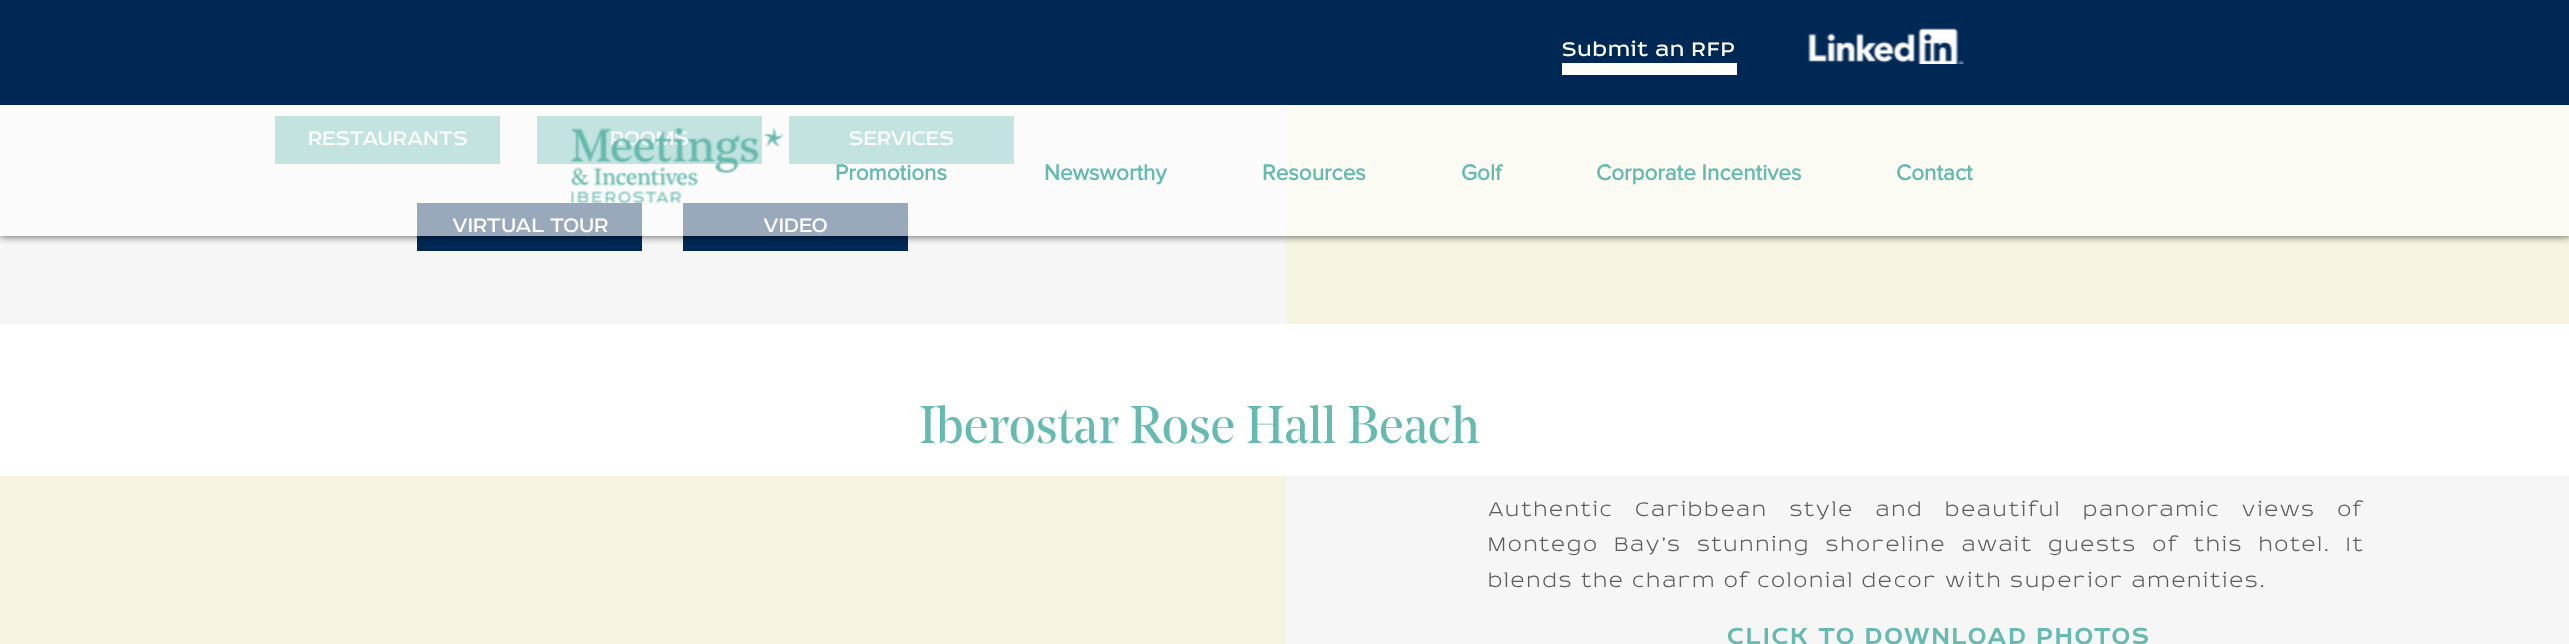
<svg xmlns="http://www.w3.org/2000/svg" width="2569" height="644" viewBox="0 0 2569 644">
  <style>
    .t1 { font: 22.5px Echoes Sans; fill: #fff; }
    .t2 { font: 22.5px Echoes Sans; letter-spacing: 1.1px; fill: #fff; }
    .t3 { font: bold 22.5px 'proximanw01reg'; fill: #67baaf; }
    .t4 { font: 52.5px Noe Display; fill: #67baaf; }
    .t5 { font: 100 22.5px Echoes Sans; letter-spacing: 2.25px; fill: #5c5c5c; }
    .t6 { font: bold 25.5px Echoes Sans; letter-spacing: 2.55px; fill: #67baaf; }
  </style>
  <defs>
    <clipPath id="clip1"><path d="M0 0H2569V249H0ZM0 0H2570V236H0Z" clip-rule="evenodd"/></clipPath>
  </defs>
  <rect width="100%" height="100%" fill="#fff"/>
  <rect x="0" y="105" width="1286" height="219" fill="#f6f6f6"/>
  <rect x="275" y="116" width="225" height="48" fill="#67baaf"/>
  <rect x="537" y="116" width="225" height="48" fill="#67baaf"/>
  <rect x="789" y="116" width="225" height="48" fill="#67baaf"/>
  <rect x="417" y="203" width="225" height="48" fill="#002855"/>
  <rect x="683" y="203" width="225" height="48" fill="#002855"/>
  <rect x="1286" y="105" width="1283" height="219" fill="#f7f5e1"/>
  <g clip-path="url(#clip1)">
    <rect x="0" y="0" width="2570" height="236" fill="#000000b3" filter="blur(4px)"/>
  </g>
  <text x="308" y="145" class="t1">RESTAURANTS</text>
  <text x="610" y="145" class="t1">ROOMS</text>
  <text x="849" y="145" class="t1">SERVICES</text>
  <text x="452" y="232" class="t1">VIRTUAL TOUR</text>
  <text x="763" y="232" class="t1">VIDEO</text>
  <rect x="0" y="105" width="2569" height="131" fill="#ffffff99"/>
  <rect x="0" y="0" width="2569" height="105" fill="#002855"/>
  <text x="1562" y="56" class="t2">Submit an RFP</text>
  <rect x="1562" y="63" width="175" height="12" fill="#fff"/>
  <image x="1808" y="28" width="156" height="36" href="images/1.png"/>
  <image x="571" y="127" width="213" height="77" href="images/2.png"/>
  <text x="835" y="180" class="t3">Promotions</text>
  <text x="1044" y="180" class="t3">Newsworthy</text>
  <text x="1262" y="180" class="t3">Resources</text>
  <text x="1461" y="180" class="t3">Golf</text>
  <text x="1596" y="180" class="t3">Corporate Incentives</text>
  <text x="1896" y="180" class="t3">Contact</text>
  <text x="919" y="443" class="t4">Iberostar Rose Hall Beach</text>
  <rect x="0" y="476" width="1286" height="168" fill="#f7f5e1"/>
  <rect x="1286" y="476" width="1283" height="168" fill="#f6f6f6"/>
  <text x="1488" y="516" word-spacing="14" class="t5">Authentic Caribbean style and beautiful panoramic views of</text>
  <text x="1488" y="551" word-spacing="7.75" class="t5">Montego Bay’s stunning shoreline await guests of this hotel. It</text>
  <text x="1488" y="587" class="t5">blends the charm of colonial decor with superior amenities.</text>
  <text x="1727" y="644" class="t6">CLICK TO DOWNLOAD PHOTOS</text>
</svg>
